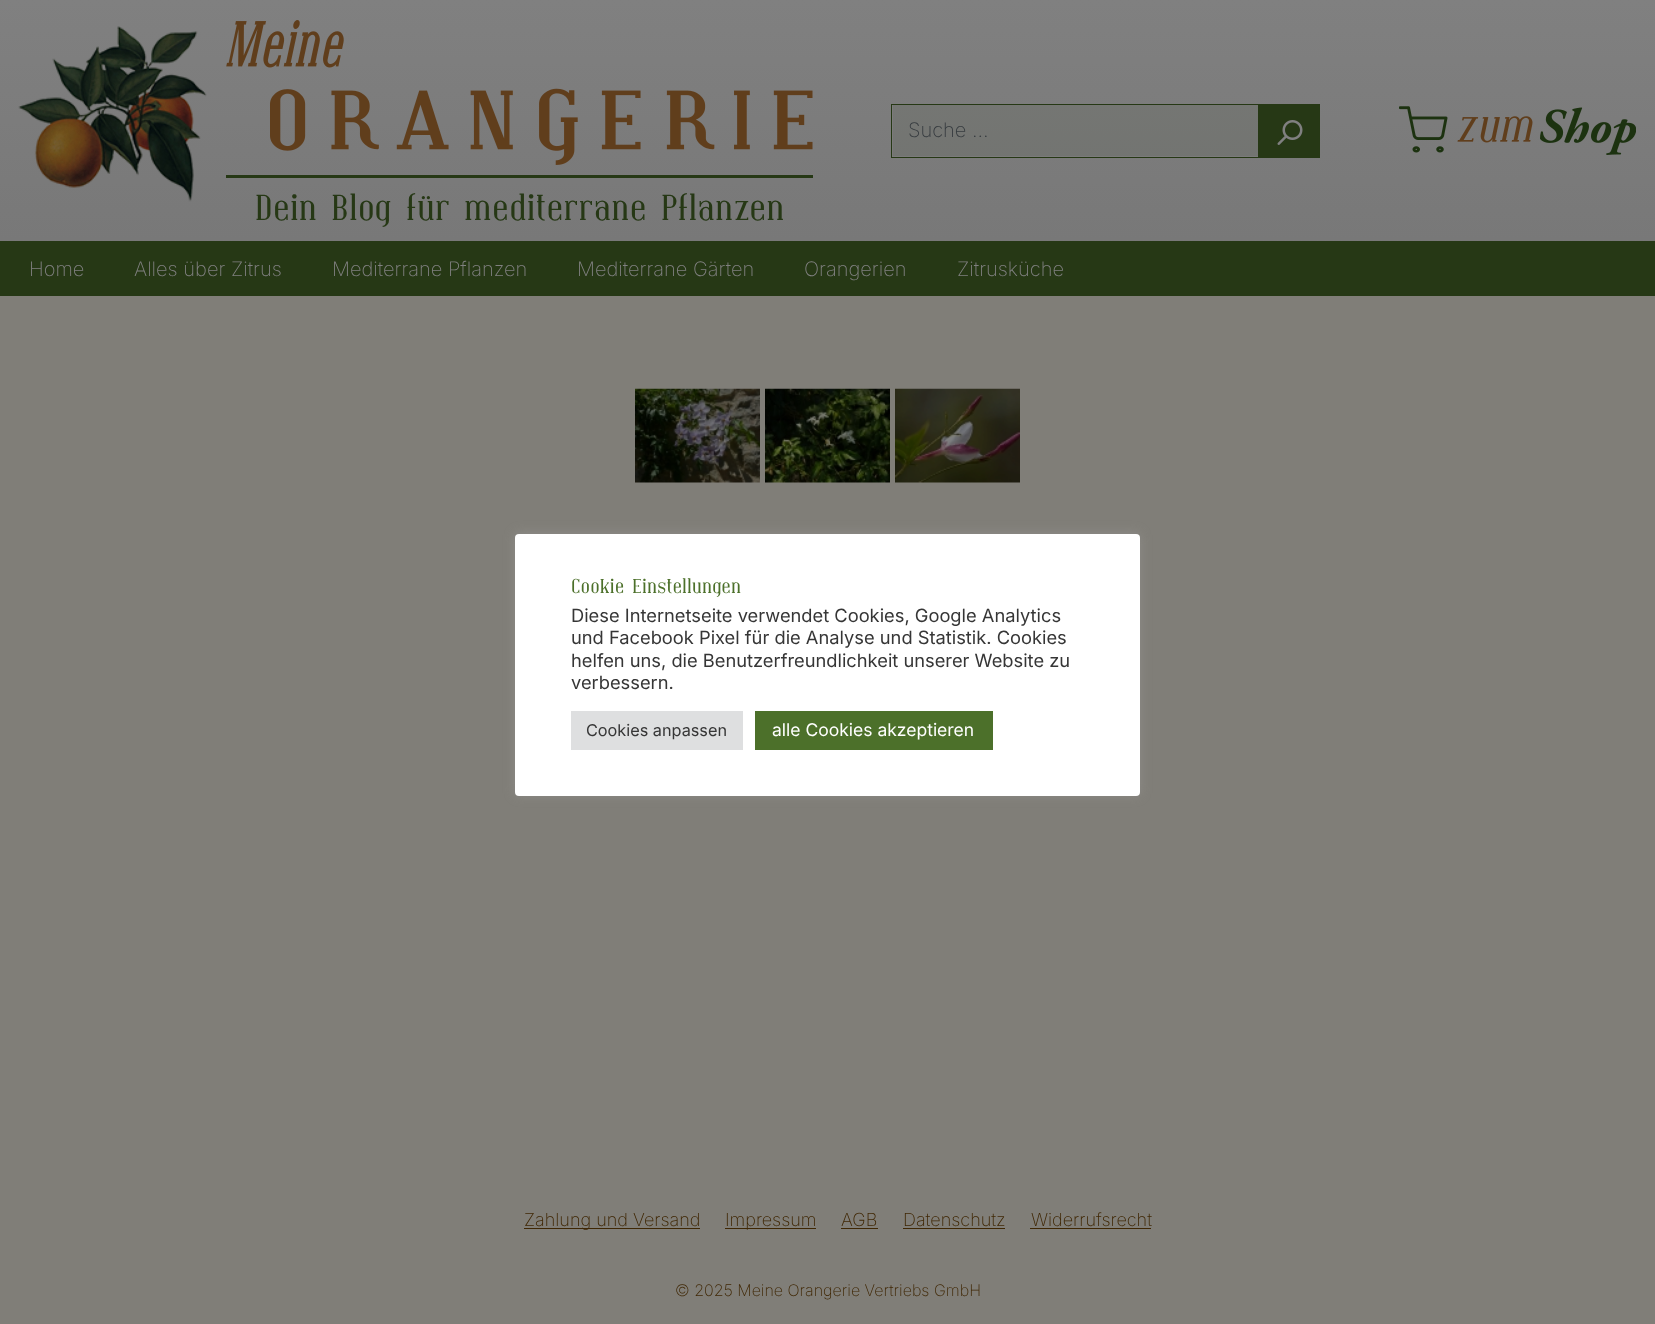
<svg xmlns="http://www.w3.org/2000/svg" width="1655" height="1324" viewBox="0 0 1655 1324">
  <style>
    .t1 { font: 200 20px Inter; fill: #363b3f; }
    .t2 { font: 36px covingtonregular; fill: #263815; }
    .t3 { font: 200 20px Inter; fill: #808080; }
    .t4 { font: 200 18px Inter; fill: #3f2704; }
    .t5 { font: 200 16px Inter; fill: #3f2704; }
    .t6 { font: 20px covingtonregular; fill: #4c702a; }
    .t7 { font: 18.3px Inter; fill: #363636; }
    .t8 { font: 16.25px Inter; fill: #363636; }
    .t9 { font: 17.5px Inter; fill: #fff; }
  </style>
  <defs>
    <linearGradient id="g1" gradientUnits="userSpaceOnUse" x1="828" y1="0" x2="828" y2="241"><stop offset="0" stop-color="#808080"/><stop offset="1" stop-color="#787878"/></linearGradient>
    <linearGradient id="g2" gradientUnits="userSpaceOnUse" x1="828" y1="0" x2="828" y2="241"><stop offset="0" stop-color="#787976"/><stop offset="1" stop-color="#70726f"/></linearGradient>
  </defs>
  <rect width="100%" height="100%" fill="#807e78"/>
  <rect x="0" y="0" width="1655" height="241" fill="url(#g1)"/>
  <rect x="893" y="105" width="365" height="51" fill="url(#g2)"/>
  <rect x="891.5" y="104.5" width="367" height="53" fill="none" stroke="#263815"/>
  <text x="908" y="137" class="t1">Suche …</text>
  <rect x="1259" y="104" width="61" height="54" fill="#263815"/>
  <image x="1277" y="120" width="26" height="25" href="images/1.png"/>
  <image x="1399" y="106" width="237" height="49" href="images/2.png"/>
  <image x="18" y="26" width="189" height="176" href="images/3.png"/>
  <image x="226" y="20" width="587" height="145" href="images/4.png"/>
  <rect x="226" y="175" width="587" height="3" fill="#263815"/>
  <text x="255" y="220" class="t2">Dein Blog für mediterrane Pflanzen</text>
  <rect x="0" y="241" width="1655" height="55" fill="#263815"/>
  <text x="29" y="276" class="t3">Home</text>
  <text x="134" y="276" class="t3">Alles über Zitrus</text>
  <text x="332" y="276" class="t3">Mediterrane Pflanzen</text>
  <text x="577" y="276" class="t3">Mediterrane Gärten</text>
  <text x="804" y="276" class="t3">Orangerien</text>
  <text x="957" y="276" class="t3">Zitrusküche</text>
  <image x="635" y="388" width="125" height="95" href="images/5.png"/>
  <image x="765" y="388" width="125" height="95" href="images/6.png"/>
  <image x="895" y="388" width="125" height="95" href="images/7.png"/>
  <rect x="524" y="1228" width="176" height="1" fill="#3f2704"/>
  <text x="524" y="1226" class="t4">Zahlung und Versand</text>
  <rect x="725" y="1228" width="91" height="1" fill="#3f2704"/>
  <text x="725" y="1226" class="t4">Impressum</text>
  <text x="841" y="1226" class="t4">AGB</text>
  <rect x="841" y="1228" width="37" height="1" fill="#3f2704"/>
  <text x="903" y="1226" class="t4">Datenschutz</text>
  <rect x="903" y="1228" width="102" height="1" fill="#3f2704"/>
  <text x="1031" y="1226" class="t4">Widerrufsrecht</text>
  <rect x="1030" y="1228" width="121" height="1" fill="#3f2704"/>
  <text x="675" y="1296" class="t5">© 2025 Meine Orangerie Vertriebs GmbH</text>
  <rect x="515" y="533" width="625" height="262" rx="4" fill="#acabab4d" filter="blur(6px)"/>
  <rect x="515" y="534" width="625" height="262" rx="4" fill="#fff"/>
  <text x="571" y="593" class="t6">Cookie Einstellungen</text>
  <text x="571" y="622" class="t7">Diese Internetseite verwendet Cookies, Google Analytics</text>
  <text x="571" y="644" class="t7">und Facebook Pixel für die Analyse und Statistik. Cookies</text>
  <text x="571" y="667" class="t7">helfen uns, die Benutzerfreundlichkeit unserer Website zu</text>
  <text x="571" y="689" class="t7">verbessern.</text>
  <rect x="571" y="711" width="172" height="39" fill="#dedfe0"/>
  <text x="586" y="736" class="t8">Cookies anpassen</text>
  <rect x="755" y="711" width="238" height="39" fill="#4c702a"/>
  <text x="772" y="736" class="t9">alle Cookies akzeptieren</text>
</svg>
